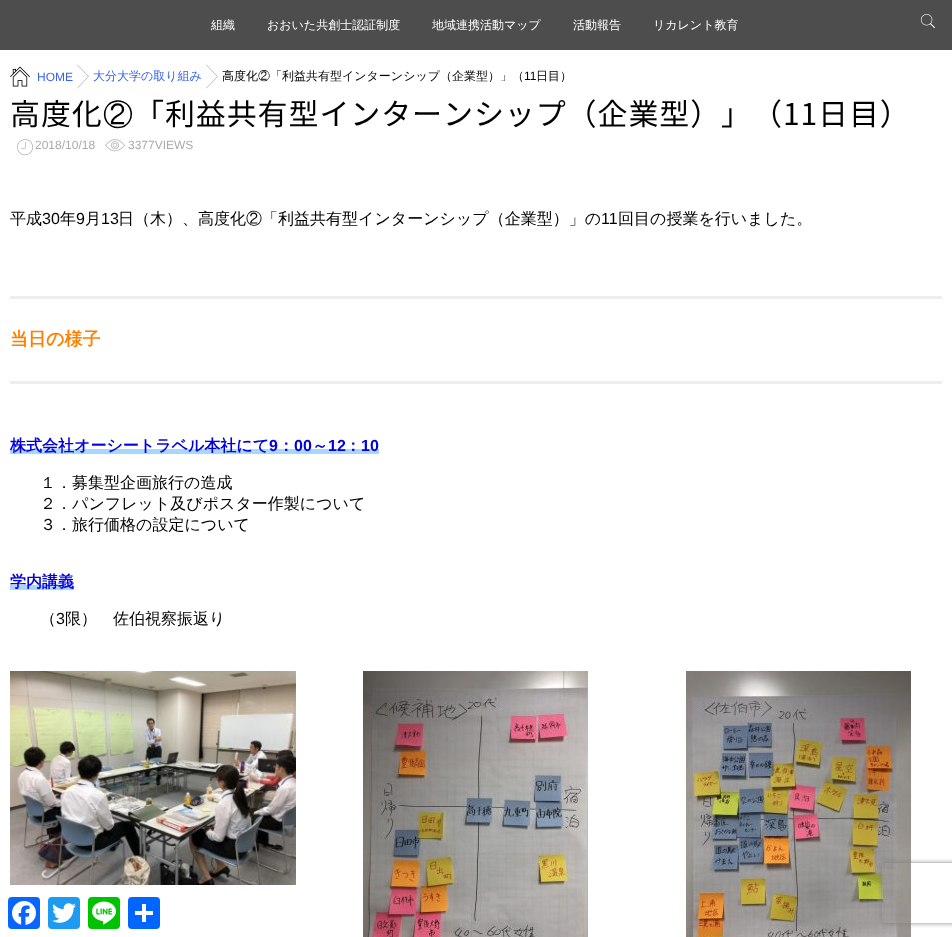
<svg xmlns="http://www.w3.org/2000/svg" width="952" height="937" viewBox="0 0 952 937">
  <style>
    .t1 { font: 500 12px WenQuanYi Zen Hei; fill: #fff; }
    .t2 { font: 12px Liberation Sans; fill: #3862f7; }
    .t3 { font: 500 12px WenQuanYi Zen Hei; fill: #3862f7; }
    .t4 { font: 500 12px WenQuanYi Zen Hei; fill: #000; }
    .t5 { font: 12px Liberation Sans; fill: #000; }
    .t6 { font: 30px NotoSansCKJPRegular; letter-spacing: 0.9px; fill: #000; }
    .t7 { font: 500 30px WenQuanYi Zen Hei; letter-spacing: 0.9px; fill: #000; }
    .t8 { font: 12px Liberation Sans; fill: #aaa; }
    .t9 { font: 500 16px WenQuanYi Zen Hei; fill: #000; }
    .t10 { font: 16px Liberation Sans; fill: #000; }
    .t11 { font: bold 18px WenQuanYi Zen Hei; fill: #ff8000; }
    .t12 { font: bold 16px WenQuanYi Zen Hei; fill: #0101df; }
    .t13 { font: bold 16px Liberation Sans; fill: #0101df; }
  </style>
  <defs>
    <clipPath id="clip1"><path d="M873 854H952V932H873ZM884 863H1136C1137 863 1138 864 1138 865V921C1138 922 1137 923 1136 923H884C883 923 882 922 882 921V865C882 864 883 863 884 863Z" clip-rule="evenodd"/></clipPath>
  </defs>
  <rect width="100%" height="100%" fill="#fff"/>
  <rect x="0" y="0" width="952" height="50" fill="#4d4d4d"/>
  <text x="211" y="29" class="t1">組織</text>
  <text x="267" y="29" class="t1">おおいた共創士認証制度</text>
  <text x="432" y="29" class="t1">地域連携活動マップ</text>
  <text x="573" y="29" class="t1">活動報告</text>
  <text x="653" y="29" class="t1">リカレント教育</text>
  <image x="920" y="14" width="15" height="15" href="images/1.png"/>
  <image x="10" y="66" width="20" height="21" href="images/2.png"/>
  <text x="37" y="81" class="t2">HOME</text>
  <path d="M77 65L88 76.5L77 88L77.5 88.5L89 76.5L77.5 64.5Z" fill="#bcbcbc"/>
  <text x="93" y="80" class="t3">大分大学の取り組み</text>
  <path d="M206 65L217 76.5L206 88L206.5 88.5L218 76.5L206.5 64.5Z" fill="#bcbcbc"/>
  <text x="222" y="80" class="t4">高度化②「利益共有型インターンシップ（企業型）」（</text>
  <text x="524" y="80" class="t5">11</text>
  <text x="536" y="80" class="t4">日目）</text>
  <text x="10" y="125" class="t6">高度化</text>
  <text x="103" y="125" class="t7">②</text>
  <text x="134" y="125" class="t6">「利益共有型インターンシップ（企業型）」（11日目）</text>
  <image x="17" y="139" width="16" height="17" href="images/3.png"/>
  <text x="35" y="149" class="t8">2018/10/18</text>
  <image x="105" y="139" width="20" height="13" href="images/4.png"/>
  <text x="128" y="149" class="t8">3377VIEWS</text>
  <text x="10" y="224" class="t9">平成</text>
  <text x="42" y="224" class="t10">30</text>
  <text x="60" y="224" class="t9">年</text>
  <text x="76" y="224" class="t10">9</text>
  <text x="85" y="224" class="t9">月</text>
  <text x="101" y="224" class="t10">13</text>
  <text x="118" y="224" class="t9">日（木）、高度化②「利益共有型インターンシップ（企業型）」の</text>
  <text x="601" y="224" class="t10">11</text>
  <text x="618" y="224" class="t9">回目の授業を行いました。</text>
  <rect x="10" y="296" width="932" height="3" fill="#eee"/>
  <text x="10" y="345" class="t11">当日の様子</text>
  <rect x="10" y="381" width="932" height="3" fill="#eee"/>
  <rect x="10" y="449" width="369" height="5" fill="#a7d6ff"/>
  <text x="10" y="451" class="t12">株式会社オーシートラベル本社にて</text>
  <text x="269" y="451" class="t13">9</text>
  <text x="278" y="451" class="t12">：</text>
  <text x="294" y="451" class="t13">00</text>
  <text x="312" y="451" class="t12">～</text>
  <text x="328" y="451" class="t13">12</text>
  <text x="345" y="451" class="t12">：</text>
  <text x="361" y="451" class="t13">10</text>
  <text x="40" y="488" class="t9">１．募集型企画旅行の造成</text>
  <text x="40" y="509" class="t9">２．パンフレット及びポスター作製について</text>
  <text x="40" y="530" class="t9">３．旅行価格の設定について</text>
  <rect x="10" y="585" width="64" height="5" fill="#a7d6ff"/>
  <text x="10" y="587" class="t12">学内講義</text>
  <text x="40" y="624" class="t9">（</text>
  <text x="56" y="624" class="t10">3</text>
  <text x="65" y="624" class="t9">限）　佐伯視察振返り</text>
  <image x="10" y="671" width="286" height="214" href="images/5.png"/>
  <image x="363" y="671" width="225" height="266" href="images/6.png"/>
  <image x="686" y="671" width="225" height="266" href="images/7.png"/>
  <rect x="8" y="897" width="32" height="32" rx="4" fill="#0866ff"/>
  <image x="12" y="901" width="24" height="24" href="images/8.png"/>
  <rect x="48" y="897" width="32" height="32" rx="4" fill="#1d9bf0"/>
  <image x="52" y="903" width="24" height="20" href="images/9.png"/>
  <rect x="88" y="897" width="32" height="32" rx="4" fill="#00c300"/>
  <image x="92" y="901" width="24" height="24" href="images/10.png"/>
  <rect x="128" y="897" width="32" height="32" rx="4" fill="#0166ff"/>
  <rect x="142" y="904" width="4" height="18" fill="#fff"/>
  <rect x="135" y="911" width="18" height="4" fill="#fff"/>
  <g clip-path="url(#clip1)">
    <rect x="882" y="863" width="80" height="60" rx="2" fill="#808080" filter="blur(2.5px)"/>
  </g>
</svg>
